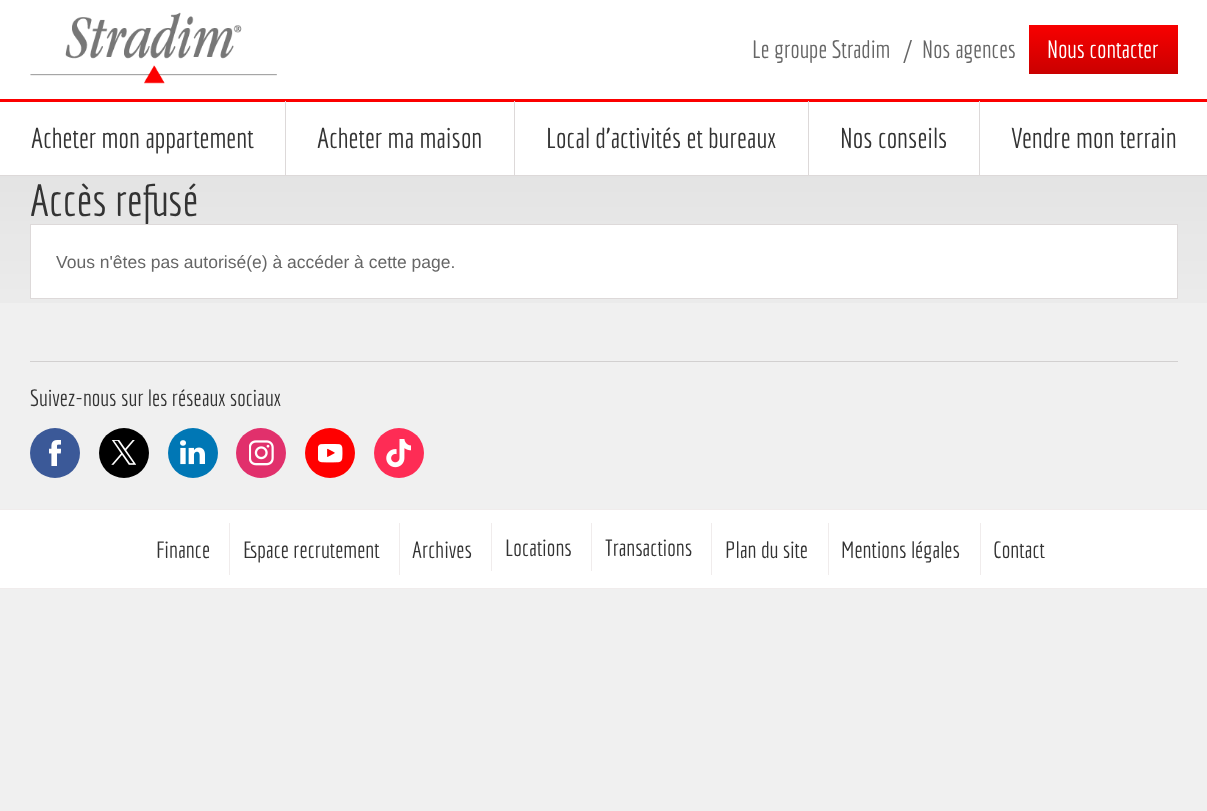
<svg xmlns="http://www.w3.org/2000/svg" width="1207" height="811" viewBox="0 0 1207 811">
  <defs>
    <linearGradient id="g1" gradientUnits="userSpaceOnUse" x1="1103" y1="25" x2="1103" y2="74"><stop offset="0" stop-color="rgb(248,0,0)"/><stop offset="1" stop-color="rgb(202,0,0)"/></linearGradient>
  </defs>
  <rect width="100%" height="100%" fill="rgb(240,240,240)"/>
  <image x="0" y="176" width="1207" height="127" href="pic1.png"/>
  <rect x="0" y="0" width="1207" height="175" fill="rgb(255,255,255)"/>
  <image x="30" y="12" width="247" height="72" href="pic2.png"/>
  <g font-family="Economica" font-size="24.5" fill="rgb(102,102,102)">
    <text x="752" y="58">Le groupe Stradim</text>
    <text x="903" y="58">/</text>
    <text x="922" y="58">Nos agences</text>
  </g>
  <rect x="1029" y="25" width="149" height="49" fill="url(#g1)"/>
  <text x="1047" y="58" font-family="Economica" font-size="24.5" fill="rgb(255,255,255)">Nous contacter</text>
  <rect x="0" y="99" width="1207" height="3" fill="rgb(252,0,0)"/>
  <rect x="0" y="175" width="1207" height="1" fill="rgb(221,217,217)"/>
  <rect x="285" y="101" width="1" height="74" fill="rgb(221,217,217)"/>
  <text x="31" y="148" font-family="Economica" font-size="28" fill="rgb(51,51,51)">Acheter mon appartement</text>
  <rect x="514" y="101" width="1" height="74" fill="rgb(221,217,217)"/>
  <text x="317" y="148" font-family="Economica" font-size="28" fill="rgb(51,51,51)">Acheter ma maison</text>
  <rect x="808" y="101" width="1" height="74" fill="rgb(221,217,217)"/>
  <text x="546" y="148" font-family="Economica" font-size="28" fill="rgb(51,51,51)">Local d'activités et bureaux</text>
  <rect x="979" y="101" width="1" height="74" fill="rgb(221,217,217)"/>
  <g font-family="Economica" font-size="28" fill="rgb(51,51,51)">
    <text x="840" y="148">Nos conseils</text>
    <text x="1011" y="148">Vendre mon terrain</text>
  </g>
  <text x="30" y="216" font-family="Economica" font-size="44" fill="rgb(51,51,51)">Accès refusé</text>
  <rect x="30.5" y="224.5" width="1147" height="74" fill="rgb(255,255,255)" stroke="rgb(221,217,217)"/>
  <text x="56" y="268" font-family="Liberation Sans" font-size="17.5" fill="rgb(102,102,102)">Vous n'êtes pas autorisé(e) à accéder à cette page.</text>
  <rect x="30" y="361" width="1148" height="1" fill="rgb(210,208,208)"/>
  <text x="30" y="406" font-family="Economica" font-size="22.75" fill="rgb(51,51,51)">Suivez-nous sur les réseaux sociaux</text>
  <circle cx="55" cy="453" r="25" fill="rgb(59,89,152)"/>
  <image x="49" y="440" width="12" height="26" href="pic3.png"/>
  <circle cx="124" cy="453" r="25" fill="rgb(0,0,0)"/>
  <image x="111" y="440" width="25" height="25" href="pic4.png"/>
  <circle cx="193" cy="453" r="25" fill="rgb(0,119,181)"/>
  <image x="180" y="440" width="25" height="25" href="pic5.png"/>
  <circle cx="261" cy="453" r="25" fill="rgb(225,48,108)"/>
  <image x="249" y="440" width="25" height="26" href="pic6.png"/>
  <circle cx="330" cy="453" r="25" fill="rgb(255,0,0)"/>
  <image x="318" y="444" width="25" height="19" href="pic7.png"/>
  <circle cx="399" cy="453" r="25" fill="rgb(254,44,85)"/>
  <image x="386" y="439" width="25" height="29" href="pic8.png"/>
  <rect x="0" y="510" width="1207" height="78" fill="rgb(255,255,255)"/>
  <rect x="0" y="509" width="1207" height="1" fill="rgb(240,236,236)"/>
  <rect x="0" y="588" width="1207" height="1" fill="rgb(240,236,236)"/>
  <text x="156" y="558" font-family="Economica" font-size="23" fill="rgb(51,51,51)">Finance</text>
  <rect x="229" y="523" width="1" height="52" fill="rgb(240,236,236)"/>
  <text x="243" y="558" font-family="Economica" font-size="23" fill="rgb(51,51,51)">Espace recrutement</text>
  <rect x="399" y="523" width="1" height="52" fill="rgb(240,236,236)"/>
  <text x="412" y="558" font-family="Economica" font-size="23" fill="rgb(51,51,51)">Archives</text>
  <rect x="491" y="523" width="1" height="48" fill="rgb(240,236,236)"/>
  <text x="505" y="556" font-family="Economica" font-size="23" fill="rgb(51,51,51)">Locations</text>
  <rect x="591" y="523" width="1" height="48" fill="rgb(240,236,236)"/>
  <text x="605" y="556" font-family="Economica" font-size="23" fill="rgb(51,51,51)">Transactions</text>
  <rect x="711" y="523" width="1" height="52" fill="rgb(240,236,236)"/>
  <text x="725" y="558" font-family="Economica" font-size="23" fill="rgb(51,51,51)">Plan du site</text>
  <rect x="828" y="523" width="1" height="52" fill="rgb(240,236,236)"/>
  <text x="841" y="558" font-family="Economica" font-size="23" fill="rgb(51,51,51)">Mentions légales</text>
  <rect x="980" y="523" width="1" height="52" fill="rgb(240,236,236)"/>
  <text x="993" y="558" font-family="Economica" font-size="23" fill="rgb(51,51,51)">Contact</text>
</svg>
